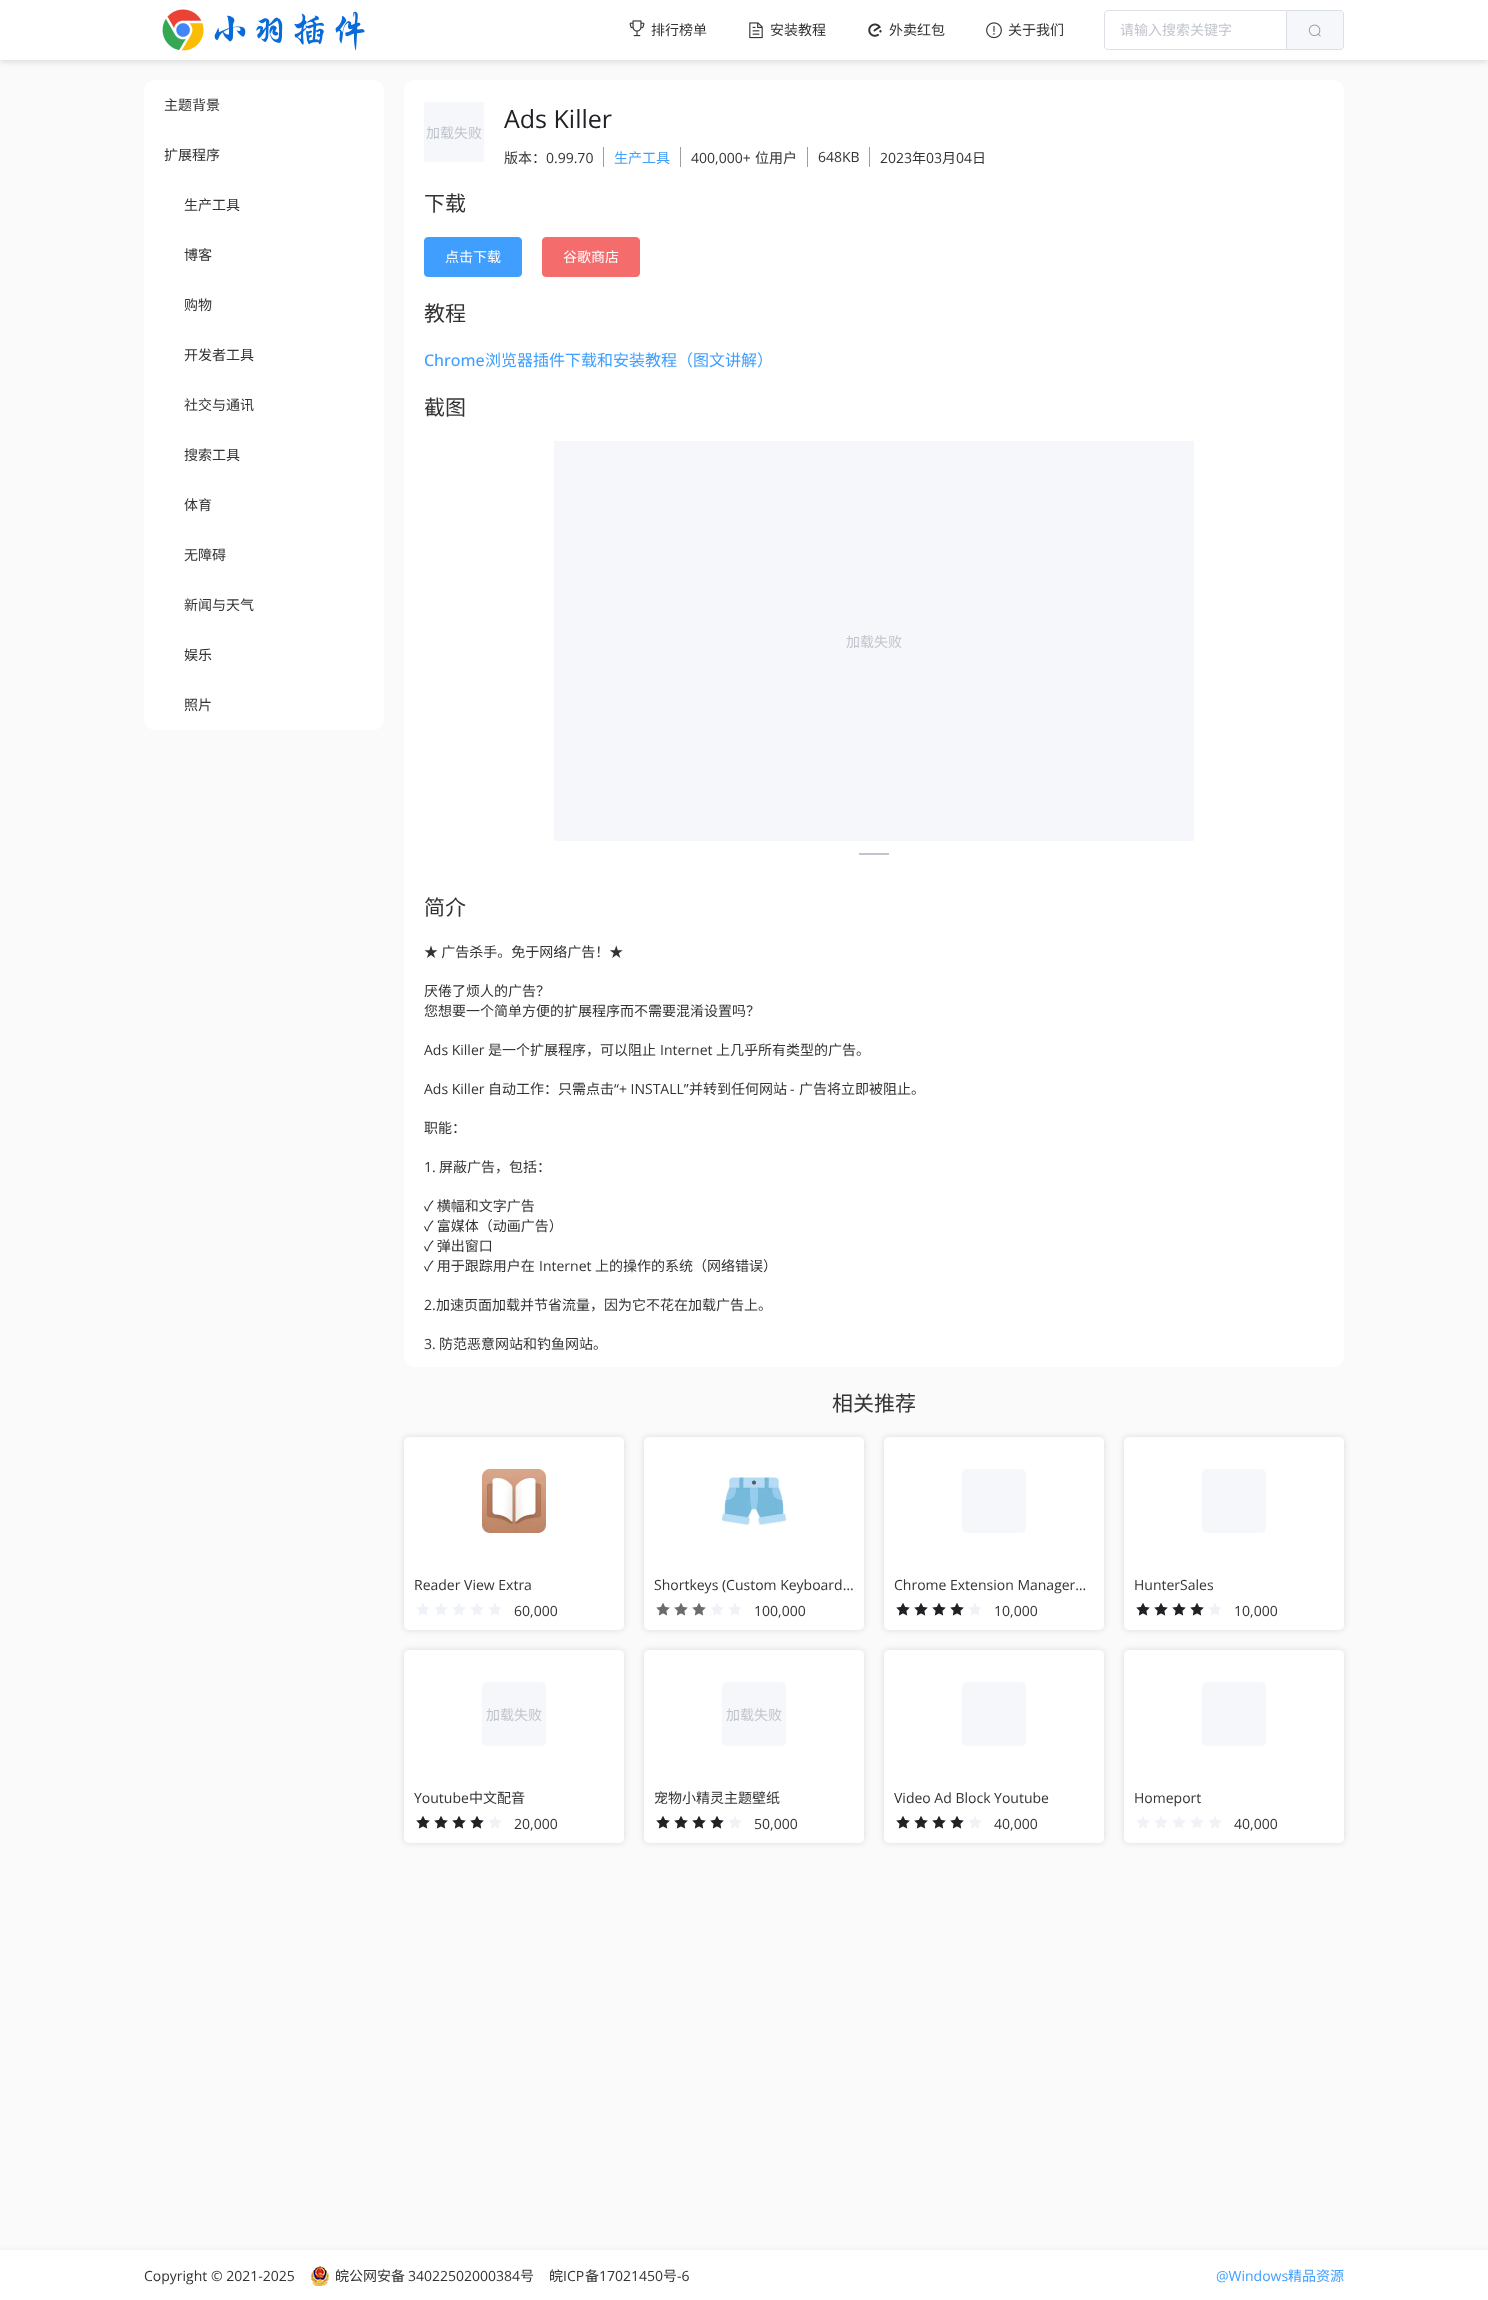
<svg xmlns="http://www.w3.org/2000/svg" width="1488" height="2300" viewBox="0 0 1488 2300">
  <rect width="100%" height="100%" fill="rgb(250,250,250)"/>
  <rect x="0" y="2" width="1488" height="60" fill="rgba(0,0,0,0.12)" filter="blur(3px)"/>
  <rect x="0" y="0" width="1488" height="60" fill="rgb(255,255,255)"/>
  <image x="162" y="9" width="203" height="42" href="pic1.png"/>
  <image x="629" y="20" width="16" height="17" href="pic2.png"/>
  <text x="651" y="35" font-family="Noto Sans CJK SC" font-size="14" fill="rgb(51,51,51)">排行榜单</text>
  <image x="749" y="22" width="14" height="17" href="pic3.png"/>
  <text x="770" y="35" font-family="Noto Sans CJK SC" font-size="14" fill="rgb(51,51,51)">安装教程</text>
  <image x="868" y="23" width="14" height="14" href="pic4.png"/>
  <text x="889" y="35" font-family="Noto Sans CJK SC" font-size="14" fill="rgb(51,51,51)">外卖红包</text>
  <image x="986" y="22" width="16" height="17" href="pic5.png"/>
  <text x="1008" y="35" font-family="Noto Sans CJK SC" font-size="14" fill="rgb(51,51,51)">关于我们</text>
  <path d="M1108 10.5H1286.5V49.5H1108C1106 49.5 1104.5 48 1104.5 46V14C1104.5 12 1106 10.5 1108 10.5Z" fill="none" stroke="rgb(220,223,230)"/>
  <text x="1120" y="35" font-family="Noto Sans CJK SC" font-size="14" fill="rgb(192,196,204)">请输入搜索关键字</text>
  <path d="M1287 10H1340C1342 10 1344 12 1344 14V46C1344 48 1342 50 1340 50H1287Z" fill="rgb(245,247,250)"/>
  <path d="M1287 10H1340C1342 10 1344 12 1344 14V46C1344 48 1342 50 1340 50H1287ZM1287 11H1340C1342 11 1343 12 1343 14V46C1343 48 1342 49 1340 49H1287Z" fill="rgb(220,223,230)" fill-rule="evenodd"/>
  <image x="1308" y="24" width="13" height="13" href="pic6.png"/>
  <rect x="144" y="80" width="240" height="650" rx="10" fill="rgb(255,255,255)"/>
  <g font-family="Noto Sans CJK SC" font-size="14" fill="rgb(51,51,51)">
    <text x="164" y="110">主题背景</text>
    <text x="164" y="160">扩展程序</text>
    <text x="184" y="210">生产工具</text>
    <text x="184" y="260">博客</text>
    <text x="184" y="310">购物</text>
    <text x="184" y="360">开发者工具</text>
    <text x="184" y="410">社交与通讯</text>
    <text x="184" y="460">搜索工具</text>
    <text x="184" y="510">体育</text>
    <text x="184" y="560">无障碍</text>
    <text x="184" y="610">新闻与天气</text>
    <text x="184" y="660">娱乐</text>
    <text x="184" y="710">照片</text>
  </g>
  <rect x="404" y="80" width="940" height="1287" rx="10" fill="rgb(255,255,255)"/>
  <rect x="424" y="102" width="60" height="60" fill="rgb(245,247,250)"/>
  <text x="426" y="138" font-family="Noto Sans CJK SC" font-size="14" fill="rgb(192,196,204)">加载失败</text>
  <text x="504" y="128" font-family="Open Sans" font-size="25" fill="rgb(32,33,36)">Ads Killer</text>
  <text x="504" y="163" font-family="Noto Sans CJK SC" font-size="14" fill="rgb(51,51,51)">版本：</text>
  <text x="546" y="163" font-family="Open Sans" font-size="14" fill="rgb(51,51,51)">0.99.70</text>
  <rect x="603" y="147" width="1" height="20" fill="rgb(154,160,166)"/>
  <text x="614" y="163" font-family="Noto Sans CJK SC" font-size="14" fill="rgb(64,158,255)">生产工具</text>
  <rect x="680" y="147" width="1" height="20" fill="rgb(154,160,166)"/>
  <text x="691" y="163" font-family="Open Sans" font-size="14" fill="rgb(51,51,51)">400,000+</text>
  <text x="755" y="163" font-family="Noto Sans CJK SC" font-size="14" fill="rgb(51,51,51)">位用户</text>
  <rect x="807" y="147" width="1" height="20" fill="rgb(154,160,166)"/>
  <text x="818" y="162" font-family="Open Sans" font-size="14" fill="rgb(51,51,51)">648KB</text>
  <rect x="869" y="147" width="1" height="20" fill="rgb(154,160,166)"/>
  <text x="880" y="163" font-family="Open Sans" font-size="14" fill="rgb(51,51,51)">2023</text>
  <text x="912" y="163" font-family="Noto Sans CJK SC" font-size="14" fill="rgb(51,51,51)">年</text>
  <text x="926" y="163" font-family="Open Sans" font-size="14" fill="rgb(51,51,51)">03</text>
  <text x="942" y="163" font-family="Noto Sans CJK SC" font-size="14" fill="rgb(51,51,51)">月</text>
  <text x="956" y="163" font-family="Open Sans" font-size="14" fill="rgb(51,51,51)">04</text>
  <text x="972" y="163" font-family="Noto Sans CJK SC" font-size="14" fill="rgb(51,51,51)">日</text>
  <text x="424" y="211" font-family="Noto Sans CJK SC" font-size="21" fill="rgb(51,51,51)">下载</text>
  <rect x="424.5" y="237.5" width="97" height="39" rx="3.5" fill="rgb(64,158,255)" stroke="rgb(64,158,255)"/>
  <text x="445" y="262" font-family="Noto Sans CJK SC" font-size="14" fill="rgb(255,255,255)">点击下载</text>
  <rect x="542.5" y="237.5" width="97" height="39" rx="3.5" fill="rgb(245,108,108)" stroke="rgb(245,108,108)"/>
  <text x="563" y="262" font-family="Noto Sans CJK SC" font-size="14" fill="rgb(255,255,255)">谷歌商店</text>
  <text x="424" y="321" font-family="Noto Sans CJK SC" font-size="21" fill="rgb(51,51,51)">教程</text>
  <text x="424" y="366" font-family="Open Sans" font-size="16" font-weight="500" fill="rgb(64,158,255)">Chrome</text>
  <text x="485" y="366" font-family="Noto Sans CJK SC" font-size="16" fill="rgb(64,158,255)">浏览器插件下载和安装教程（图文讲解）</text>
  <text x="424" y="415" font-family="Noto Sans CJK SC" font-size="21" fill="rgb(51,51,51)">截图</text>
  <rect x="554" y="441" width="640" height="400" fill="rgb(245,247,250)"/>
  <text x="846" y="647" font-family="Noto Sans CJK SC" font-size="14" fill="rgb(192,196,204)">加载失败</text>
  <rect x="859" y="853" width="30" height="2" fill="rgb(192,196,204)"/>
  <text x="424" y="915" font-family="Noto Sans CJK SC" font-size="21" fill="rgb(51,51,51)">简介</text>
  <g font-family="Noto Sans CJK SC" font-size="14" fill="rgb(51,51,51)">
    <text x="424" y="957">★ 广告杀手。免于网络广告！★</text>
    <text>
      <tspan x="424" y="996">厌倦了烦人的广告？</tspan>
      <tspan x="424" y="1016">您想要一个简单方便的扩展程序而不需要混淆设置吗？</tspan>
    </text>
  </g>
  <text x="424" y="1055" font-family="Open Sans" font-size="14" fill="rgb(51,51,51)">Ads Killer</text>
  <text x="488" y="1055" font-family="Noto Sans CJK SC" font-size="14" fill="rgb(51,51,51)">是一个扩展程序，可以阻止</text>
  <text x="660" y="1055" font-family="Open Sans" font-size="14" fill="rgb(51,51,51)">Internet</text>
  <text x="716" y="1055" font-family="Noto Sans CJK SC" font-size="14" fill="rgb(51,51,51)">上几乎所有类型的广告。</text>
  <text x="424" y="1094" font-family="Open Sans" font-size="14" fill="rgb(51,51,51)">Ads Killer</text>
  <text x="488" y="1094" font-family="Noto Sans CJK SC" font-size="14" fill="rgb(51,51,51)">自动工作：只需点击</text>
  <text x="614" y="1094" font-family="Open Sans" font-size="14" fill="rgb(51,51,51)">“+ INSTALL”</text>
  <text x="689" y="1094" font-family="Noto Sans CJK SC" font-size="14" fill="rgb(51,51,51)">并转到任何网站</text>
  <text x="790" y="1094" font-family="Open Sans" font-size="14" fill="rgb(51,51,51)">-</text>
  <g font-family="Noto Sans CJK SC" font-size="14" fill="rgb(51,51,51)">
    <text x="799" y="1094">广告将立即被阻止。</text>
    <text x="424" y="1133">职能：</text>
  </g>
  <text x="424" y="1172" font-family="Open Sans" font-size="14" fill="rgb(51,51,51)">1.</text>
  <g font-family="Noto Sans CJK SC" font-size="14" fill="rgb(51,51,51)">
    <text x="439" y="1172">屏蔽广告，包括：</text>
    <text>
      <tspan x="424" y="1211">✓ 横幅和文字广告</tspan>
      <tspan x="424" y="1231">✓ 富媒体（动画广告）</tspan>
      <tspan x="424" y="1251">✓ 弹出窗口</tspan>
      <tspan x="424" y="1271">✓ 用于跟踪用户在</tspan>
    </text>
  </g>
  <text x="539" y="1271" font-family="Open Sans" font-size="14" fill="rgb(51,51,51)">Internet</text>
  <text x="595" y="1271" font-family="Noto Sans CJK SC" font-size="14" fill="rgb(51,51,51)">上的操作的系统（网络错误）</text>
  <text x="424" y="1310" font-family="Open Sans" font-size="14" fill="rgb(51,51,51)">2.</text>
  <text x="436" y="1310" font-family="Noto Sans CJK SC" font-size="14" fill="rgb(51,51,51)">加速页面加载并节省流量，因为它不花在加载广告上。</text>
  <text x="424" y="1349" font-family="Open Sans" font-size="14" fill="rgb(51,51,51)">3.</text>
  <text x="439" y="1349" font-family="Noto Sans CJK SC" font-size="14" fill="rgb(51,51,51)">防范恶意网站和钓鱼网站。</text>
  <text x="832" y="1411" font-family="Noto Sans CJK SC" font-size="21" fill="rgb(51,51,51)">相关推荐</text>
  <rect x="404" y="1437" width="220" height="193" rx="5" fill="rgba(0,0,0,0.12)" filter="blur(3px)"/>
  <rect x="404" y="1437" width="220" height="193" rx="5" fill="rgb(255,255,255)"/>
  <image x="482" y="1469" width="64" height="64" href="pic7.png"/>
  <text x="414" y="1590" font-family="Open Sans" font-size="14" fill="rgb(51,51,51)">Reader View Extra</text>
  <image x="416" y="1603" width="14" height="12" href="pic8.png"/>
  <image x="434" y="1603" width="14" height="12" href="pic8.png"/>
  <image x="452" y="1603" width="14" height="12" href="pic8.png"/>
  <image x="470" y="1603" width="14" height="12" href="pic8.png"/>
  <image x="488" y="1603" width="14" height="12" href="pic8.png"/>
  <text x="514" y="1616" font-family="Open Sans" font-size="14" fill="rgb(51,51,51)">60,000</text>
  <rect x="644" y="1437" width="220" height="193" rx="5" fill="rgba(0,0,0,0.12)" filter="blur(3px)"/>
  <rect x="644" y="1437" width="220" height="193" rx="5" fill="rgb(255,255,255)"/>
  <image x="722" y="1477" width="64" height="48" href="pic9.png"/>
  <text x="654" y="1590" font-family="Open Sans" font-size="14" fill="rgb(51,51,51)">Shortkeys (Custom Keyboard…</text>
  <image x="656" y="1603" width="14" height="13" href="pic10.png"/>
  <image x="674" y="1603" width="14" height="13" href="pic10.png"/>
  <image x="692" y="1603" width="14" height="13" href="pic10.png"/>
  <image x="710" y="1603" width="14" height="12" href="pic8.png"/>
  <image x="728" y="1603" width="14" height="12" href="pic8.png"/>
  <text x="754" y="1616" font-family="Open Sans" font-size="14" fill="rgb(51,51,51)">100,000</text>
  <rect x="884" y="1437" width="220" height="193" rx="5" fill="rgba(0,0,0,0.12)" filter="blur(3px)"/>
  <rect x="884" y="1437" width="220" height="193" rx="5" fill="rgb(255,255,255)"/>
  <rect x="962" y="1469" width="64" height="64" rx="5" fill="rgb(245,247,250)"/>
  <text x="894" y="1590" font-family="Open Sans" font-size="14" fill="rgb(51,51,51)">Chrome Extension Manager…</text>
  <image x="896" y="1602" width="14" height="14" href="pic11.png"/>
  <image x="914" y="1602" width="14" height="14" href="pic11.png"/>
  <image x="932" y="1602" width="14" height="14" href="pic11.png"/>
  <image x="950" y="1602" width="14" height="14" href="pic11.png"/>
  <image x="968" y="1603" width="14" height="12" href="pic8.png"/>
  <text x="994" y="1616" font-family="Open Sans" font-size="14" fill="rgb(51,51,51)">10,000</text>
  <rect x="1124" y="1437" width="220" height="193" rx="5" fill="rgba(0,0,0,0.12)" filter="blur(3px)"/>
  <rect x="1124" y="1437" width="220" height="193" rx="5" fill="rgb(255,255,255)"/>
  <rect x="1202" y="1469" width="64" height="64" rx="5" fill="rgb(245,247,250)"/>
  <text x="1134" y="1590" font-family="Open Sans" font-size="14" fill="rgb(51,51,51)">HunterSales</text>
  <image x="1136" y="1602" width="14" height="14" href="pic11.png"/>
  <image x="1154" y="1602" width="14" height="14" href="pic11.png"/>
  <image x="1172" y="1602" width="14" height="14" href="pic11.png"/>
  <image x="1190" y="1602" width="14" height="14" href="pic11.png"/>
  <image x="1208" y="1603" width="14" height="12" href="pic8.png"/>
  <text x="1234" y="1616" font-family="Open Sans" font-size="14" fill="rgb(51,51,51)">10,000</text>
  <rect x="404" y="1650" width="220" height="193" rx="5" fill="rgba(0,0,0,0.12)" filter="blur(3px)"/>
  <rect x="404" y="1650" width="220" height="193" rx="5" fill="rgb(255,255,255)"/>
  <rect x="482" y="1682" width="64" height="64" rx="5" fill="rgb(245,247,250)"/>
  <text x="486" y="1720" font-family="Noto Sans CJK SC" font-size="14" fill="rgb(192,196,204)">加载失败</text>
  <text x="414" y="1803" font-family="Open Sans" font-size="14" fill="rgb(51,51,51)">Youtube</text>
  <text x="469" y="1803" font-family="Noto Sans CJK SC" font-size="14" fill="rgb(51,51,51)">中文配音</text>
  <image x="416" y="1815" width="14" height="14" href="pic11.png"/>
  <image x="434" y="1815" width="14" height="14" href="pic11.png"/>
  <image x="452" y="1815" width="14" height="14" href="pic11.png"/>
  <image x="470" y="1815" width="14" height="14" href="pic11.png"/>
  <image x="488" y="1816" width="14" height="12" href="pic8.png"/>
  <text x="514" y="1829" font-family="Open Sans" font-size="14" fill="rgb(51,51,51)">20,000</text>
  <rect x="644" y="1650" width="220" height="193" rx="5" fill="rgba(0,0,0,0.12)" filter="blur(3px)"/>
  <rect x="644" y="1650" width="220" height="193" rx="5" fill="rgb(255,255,255)"/>
  <rect x="722" y="1682" width="64" height="64" rx="5" fill="rgb(245,247,250)"/>
  <text x="726" y="1720" font-family="Noto Sans CJK SC" font-size="14" fill="rgb(192,196,204)">加载失败</text>
  <text x="654" y="1803" font-family="Noto Sans CJK SC" font-size="14" fill="rgb(51,51,51)">宠物小精灵主题壁纸</text>
  <image x="656" y="1815" width="14" height="14" href="pic11.png"/>
  <image x="674" y="1815" width="14" height="14" href="pic11.png"/>
  <image x="692" y="1815" width="14" height="14" href="pic11.png"/>
  <image x="710" y="1815" width="14" height="14" href="pic11.png"/>
  <image x="728" y="1816" width="14" height="12" href="pic8.png"/>
  <text x="754" y="1829" font-family="Open Sans" font-size="14" fill="rgb(51,51,51)">50,000</text>
  <rect x="884" y="1650" width="220" height="193" rx="5" fill="rgba(0,0,0,0.12)" filter="blur(3px)"/>
  <rect x="884" y="1650" width="220" height="193" rx="5" fill="rgb(255,255,255)"/>
  <rect x="962" y="1682" width="64" height="64" rx="5" fill="rgb(245,247,250)"/>
  <text x="894" y="1803" font-family="Open Sans" font-size="14" fill="rgb(51,51,51)">Video Ad Block Youtube</text>
  <image x="896" y="1815" width="14" height="14" href="pic11.png"/>
  <image x="914" y="1815" width="14" height="14" href="pic11.png"/>
  <image x="932" y="1815" width="14" height="14" href="pic11.png"/>
  <image x="950" y="1815" width="14" height="14" href="pic11.png"/>
  <image x="968" y="1816" width="14" height="12" href="pic8.png"/>
  <text x="994" y="1829" font-family="Open Sans" font-size="14" fill="rgb(51,51,51)">40,000</text>
  <rect x="1124" y="1650" width="220" height="193" rx="5" fill="rgba(0,0,0,0.12)" filter="blur(3px)"/>
  <rect x="1124" y="1650" width="220" height="193" rx="5" fill="rgb(255,255,255)"/>
  <rect x="1202" y="1682" width="64" height="64" rx="5" fill="rgb(245,247,250)"/>
  <text x="1134" y="1803" font-family="Open Sans" font-size="14" fill="rgb(51,51,51)">Homeport</text>
  <image x="1136" y="1816" width="14" height="12" href="pic8.png"/>
  <image x="1154" y="1816" width="14" height="12" href="pic8.png"/>
  <image x="1172" y="1816" width="14" height="12" href="pic8.png"/>
  <image x="1190" y="1816" width="14" height="12" href="pic8.png"/>
  <image x="1208" y="1816" width="14" height="12" href="pic8.png"/>
  <text x="1234" y="1829" font-family="Open Sans" font-size="14" fill="rgb(51,51,51)">40,000</text>
  <rect x="0" y="2252" width="1488" height="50" fill="rgba(0,0,0,0.12)" filter="blur(3px)"/>
  <rect x="0" y="2250" width="1488" height="50" fill="rgb(255,255,255)"/>
  <text x="144" y="2281" font-family="Open Sans" font-size="14" fill="rgb(51,51,51)">Copyright © 2021-2025</text>
  <image x="311" y="2266" width="18" height="20" href="pic12.png"/>
  <text x="335" y="2281" font-family="Noto Sans CJK SC" font-size="14" fill="rgb(51,51,51)">皖公网安备</text>
  <text x="408" y="2281" font-family="Open Sans" font-size="14" fill="rgb(51,51,51)">34022502000384</text>
  <g font-family="Noto Sans CJK SC" font-size="14" fill="rgb(51,51,51)">
    <text x="520" y="2281">号</text>
    <text x="549" y="2281">皖</text>
  </g>
  <text x="563" y="2281" font-family="Open Sans" font-size="14" fill="rgb(51,51,51)">ICP</text>
  <text x="585" y="2281" font-family="Noto Sans CJK SC" font-size="14" fill="rgb(51,51,51)">备</text>
  <text x="599" y="2281" font-family="Open Sans" font-size="14" fill="rgb(51,51,51)">17021450</text>
  <text x="663" y="2281" font-family="Noto Sans CJK SC" font-size="14" fill="rgb(51,51,51)">号</text>
  <text x="677" y="2281" font-family="Open Sans" font-size="14" fill="rgb(51,51,51)">-6</text>
  <text x="1216" y="2281" font-family="Open Sans" font-size="14" fill="rgb(64,158,255)">@Windows</text>
  <text x="1288" y="2281" font-family="Noto Sans CJK SC" font-size="14" fill="rgb(64,158,255)">精品资源</text>
</svg>
